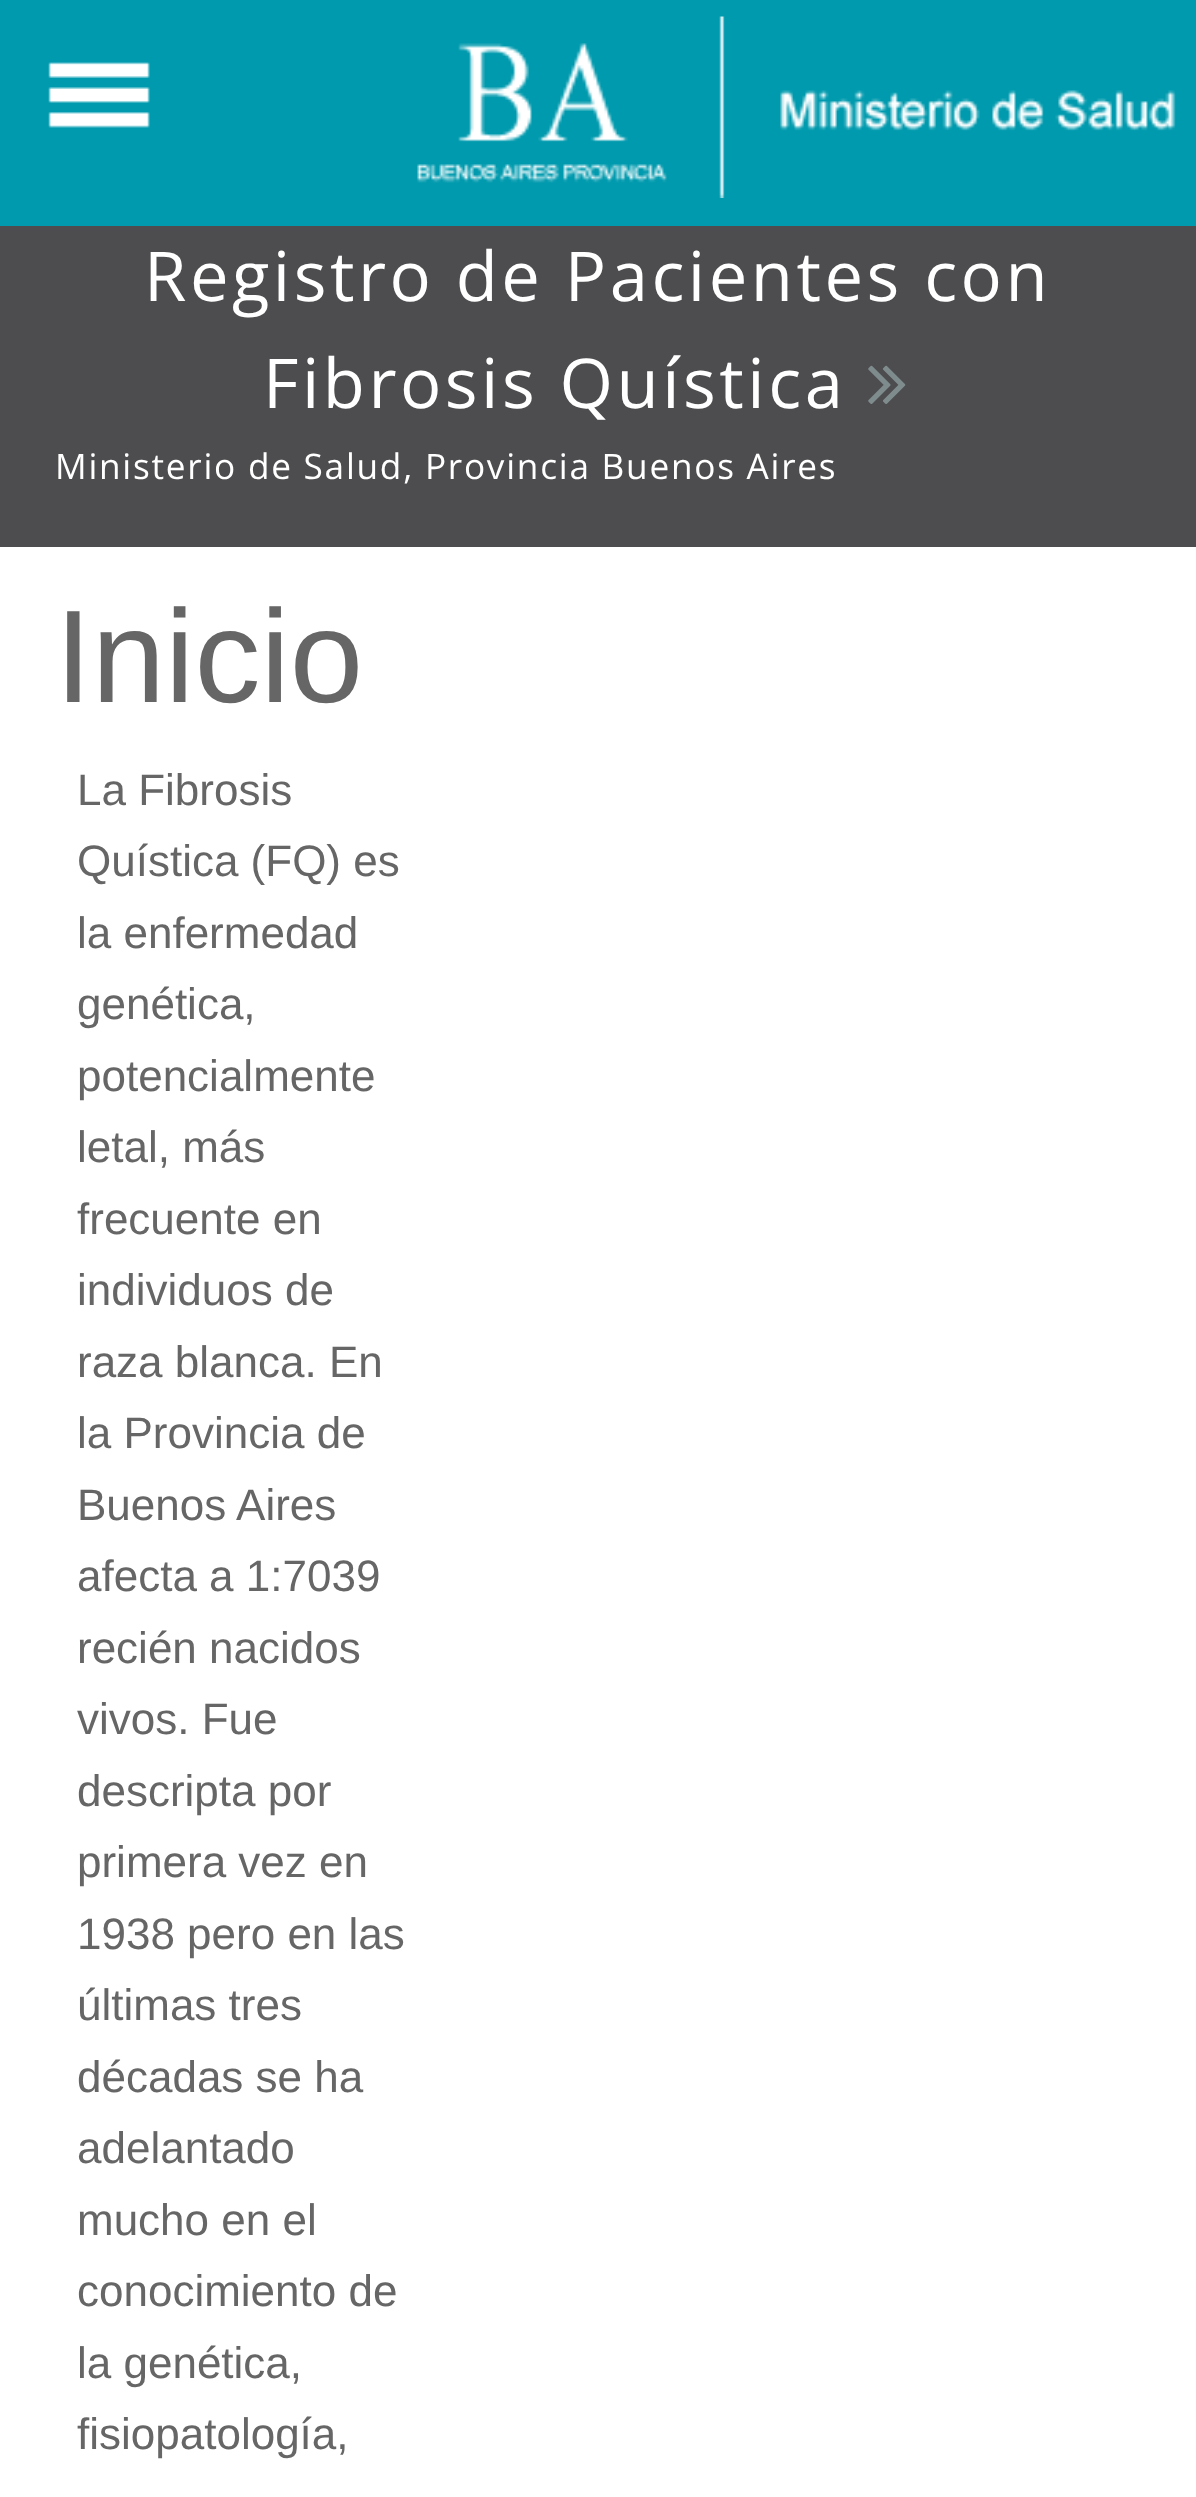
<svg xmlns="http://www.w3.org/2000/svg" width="1196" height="2497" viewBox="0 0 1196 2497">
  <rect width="100%" height="100%" fill="rgb(255,255,255)"/>
  <rect x="0" y="226" width="1196" height="321" fill="rgb(77,77,79)"/>
  <rect x="0" y="0" width="1196" height="226" fill="rgb(0,154,174)"/>
  <image x="48" y="62" width="102" height="66" href="pic1.png"/>
  <image x="417" y="16" width="759" height="182" href="pic2.png"/>
  <g font-family="Open Sans" font-size="68.75" letter-spacing="3.5" fill="rgb(255,255,255)">
    <text x="144" y="301">Registro de Pacientes con</text>
    <text x="263" y="408">Fibrosis Quística</text>
  </g>
  <image x="868" y="365" width="38" height="39" href="pic3.png"/>
  <text x="55" y="479" font-family="Open Sans" font-size="35.2" letter-spacing="1.75" fill="rgb(255,255,255)">Ministerio de Salud, Provincia Buenos Aires</text>
  <text x="55" y="702" font-family="Liberation Sans" font-size="132" fill="rgb(102,102,102)">Inicio</text>
  <g font-family="Liberation Sans" font-size="44" fill="rgb(102,102,102)">
    <text>
      <tspan x="77" y="805">La Fibrosis</tspan>
      <tspan x="77" y="876">Quística (FQ) es</tspan>
      <tspan x="77" y="948">la enfermedad</tspan>
      <tspan x="77" y="1019">genética,</tspan>
      <tspan x="77" y="1091">potencialmente</tspan>
      <tspan x="77" y="1162">letal, más</tspan>
      <tspan x="77" y="1234">frecuente en</tspan>
      <tspan x="77" y="1305">individuos de</tspan>
      <tspan x="77" y="1377">raza blanca. En</tspan>
      <tspan x="77" y="1448">la Provincia de</tspan>
      <tspan x="77" y="1520">Buenos Aires</tspan>
      <tspan x="77" y="1591">afecta a 1:7039</tspan>
      <tspan x="77" y="1663">recién nacidos</tspan>
      <tspan x="77" y="1734">vivos. Fue</tspan>
      <tspan x="77" y="1806">descripta por</tspan>
      <tspan x="77" y="1877">primera vez en</tspan>
      <tspan x="77" y="1949">1938 pero en las</tspan>
      <tspan x="77" y="2020">últimas tres</tspan>
      <tspan x="77" y="2092">décadas se ha</tspan>
      <tspan x="77" y="2163">adelantado</tspan>
      <tspan x="77" y="2235">mucho en el</tspan>
      <tspan x="77" y="2306">conocimiento de</tspan>
      <tspan x="77" y="2378">la genética,</tspan>
      <tspan x="77" y="2449">fisiopatología,</tspan>
    </text>
  </g>
</svg>
